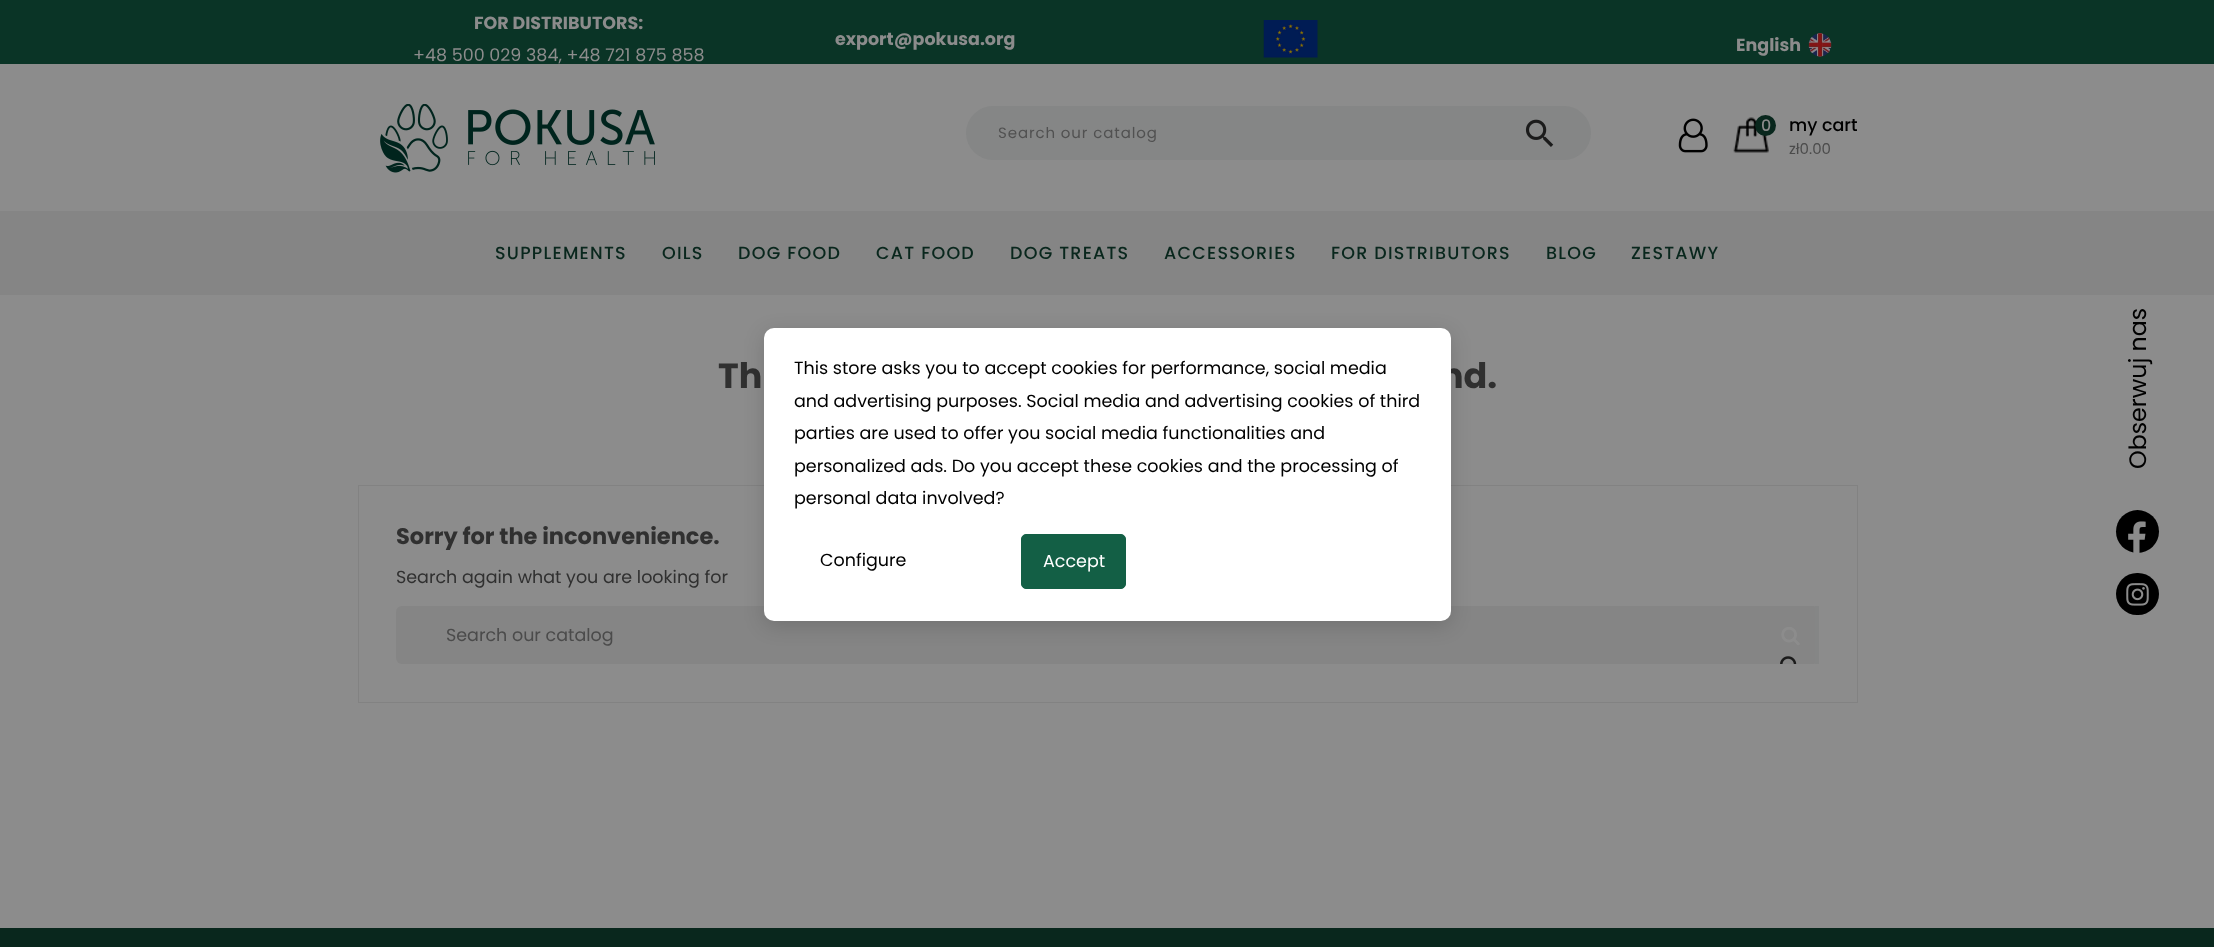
<svg xmlns="http://www.w3.org/2000/svg" width="2214" height="947" viewBox="0 0 2214 947">
  <rect width="100%" height="100%" fill="rgb(140,140,140)"/>
  <rect x="0" y="0" width="2214" height="64" fill="rgb(10,52,38)"/>
  <text x="474" y="29" font-family="Poppins" font-size="17.5" font-weight="bold" fill="rgb(140,140,140)">FOR DISTRIBUTORS:</text>
  <text x="413" y="61" font-family="Poppins" font-size="17.5" fill="rgb(140,140,140)">+48 500 029 384, +48 721 875 858</text>
  <text x="835" y="45" font-family="Poppins" font-size="17.5" font-weight="bold" fill="rgb(140,140,140)">export@pokusa.org</text>
  <image x="1263" y="20" width="55" height="38" href="pic1.png"/>
  <text x="1736" y="51" font-family="Poppins" font-size="17.5" font-weight="bold" fill="rgb(140,140,140)">English</text>
  <image x="1808" y="33" width="24" height="24" href="pic2.png"/>
  <image x="380" y="104" width="275" height="69" href="pic3.png"/>
  <rect x="966" y="106" width="625" height="54" rx="27" fill="rgb(133,134,134)"/>
  <text x="998" y="138" font-family="Poppins" font-size="15" letter-spacing="0.9" fill="rgb(81,81,81)">Search our catalog</text>
  <image x="1525" y="119" width="29" height="28" href="pic4.png"/>
  <image x="1678" y="118" width="30" height="35" href="pic5.png"/>
  <image x="1733" y="117" width="36" height="36" href="pic6.png"/>
  <circle cx="1765.5" cy="125.5" r="10.5" fill="rgb(9,39,29)"/>
  <text x="1761" y="131" font-family="Poppins" font-size="16" font-weight="500" fill="rgb(140,140,140)">0</text>
  <text x="1789" y="131" font-family="Poppins" font-size="17.5" font-weight="500" fill="rgb(0,0,0)">my cart</text>
  <text x="1789" y="154" font-family="Poppins" font-size="15" fill="rgb(75,75,75)">zł0.00</text>
  <rect x="0" y="211" width="2214" height="84" fill="rgb(133,133,133)"/>
  <g font-family="Poppins" font-size="17.5" font-weight="500" letter-spacing="1.25" fill="rgb(9,39,29)">
    <text x="495" y="259">SUPPLEMENTS</text>
    <text x="662" y="259">OILS</text>
    <text x="738" y="259">DOG FOOD</text>
    <text x="876" y="259">CAT FOOD</text>
    <text x="1010" y="259">DOG TREATS</text>
    <text x="1164" y="259">ACCESSORIES</text>
    <text x="1331" y="259">FOR DISTRIBUTORS</text>
    <text x="1546" y="259">BLOG</text>
    <text x="1631" y="259">ZESTAWY</text>
  </g>
  <text x="2146" y="469" transform="rotate(-90 2146 469)" font-family="Poppins" font-size="23.75" fill="rgb(0,0,0)">Obserwuj nas</text>
  <circle cx="2137.5" cy="531.5" r="21.5" fill="rgb(0,0,0)"/>
  <image x="2128" y="521" width="18" height="32" href="pic7.png"/>
  <rect x="2116" y="573" width="43" height="42" rx="21" fill="rgb(0,0,0)"/>
  <image x="2126" y="583" width="23" height="23" href="pic8.png"/>
  <g font-family="Poppins" font-size="35" font-weight="bold" fill="rgb(48,48,48)">
    <text x="718" y="388">Th</text>
    <text x="1440" y="388">nd.</text>
  </g>
  <rect x="358.5" y="485.5" width="1499" height="217" fill="none" stroke="rgb(130,130,130)"/>
  <text x="396" y="544" font-family="Poppins" font-size="22.5" font-weight="bold" fill="rgb(48,48,48)">Sorry for the inconvenience.</text>
  <text x="396" y="583" font-family="Poppins" font-size="17.5" fill="rgb(48,48,48)">Search again what you are looking for</text>
  <rect x="396" y="606" width="1423" height="58" rx="6" fill="rgb(133,133,133)"/>
  <text x="446" y="641" font-family="Poppins" font-size="17.5" fill="rgb(75,75,75)">Search our catalog</text>
  <rect x="1815" y="606" width="4" height="58" fill="rgb(133,134,134)"/>
  <image x="1781" y="627" width="19" height="19" href="pic9.png"/>
  <image x="1780" y="656" width="17" height="8" href="pic10.png"/>
  <rect x="0" y="928" width="2214" height="19" fill="rgb(9,39,29)"/>
  <rect x="764" y="333" width="687" height="293" rx="10" fill="rgba(0,0,0,0.15)" filter="blur(10px)"/>
  <rect x="764" y="328" width="687" height="293" rx="10" fill="rgb(255,255,255)"/>
  <g font-family="Poppins" font-size="17.5" fill="rgb(0,0,0)">
    <text>
      <tspan x="794" y="374">This store asks you to accept cookies for performance, social media</tspan>
      <tspan x="794" y="407">and advertising purposes. Social media and advertising cookies of third</tspan>
      <tspan x="794" y="439">parties are used to offer you social media functionalities and</tspan>
      <tspan x="794" y="472">personalized ads. Do you accept these cookies and the processing of</tspan>
      <tspan x="794" y="504">personal data involved?</tspan>
    </text>
    <text x="820" y="566">Configure</text>
  </g>
  <rect x="1021.5" y="534.5" width="104" height="54" rx="4.5" fill="rgb(19,95,69)" stroke="rgb(19,95,69)"/>
  <text x="1043" y="567" font-family="Poppins" font-size="17.5" fill="rgb(255,255,255)">Accept</text>
</svg>
